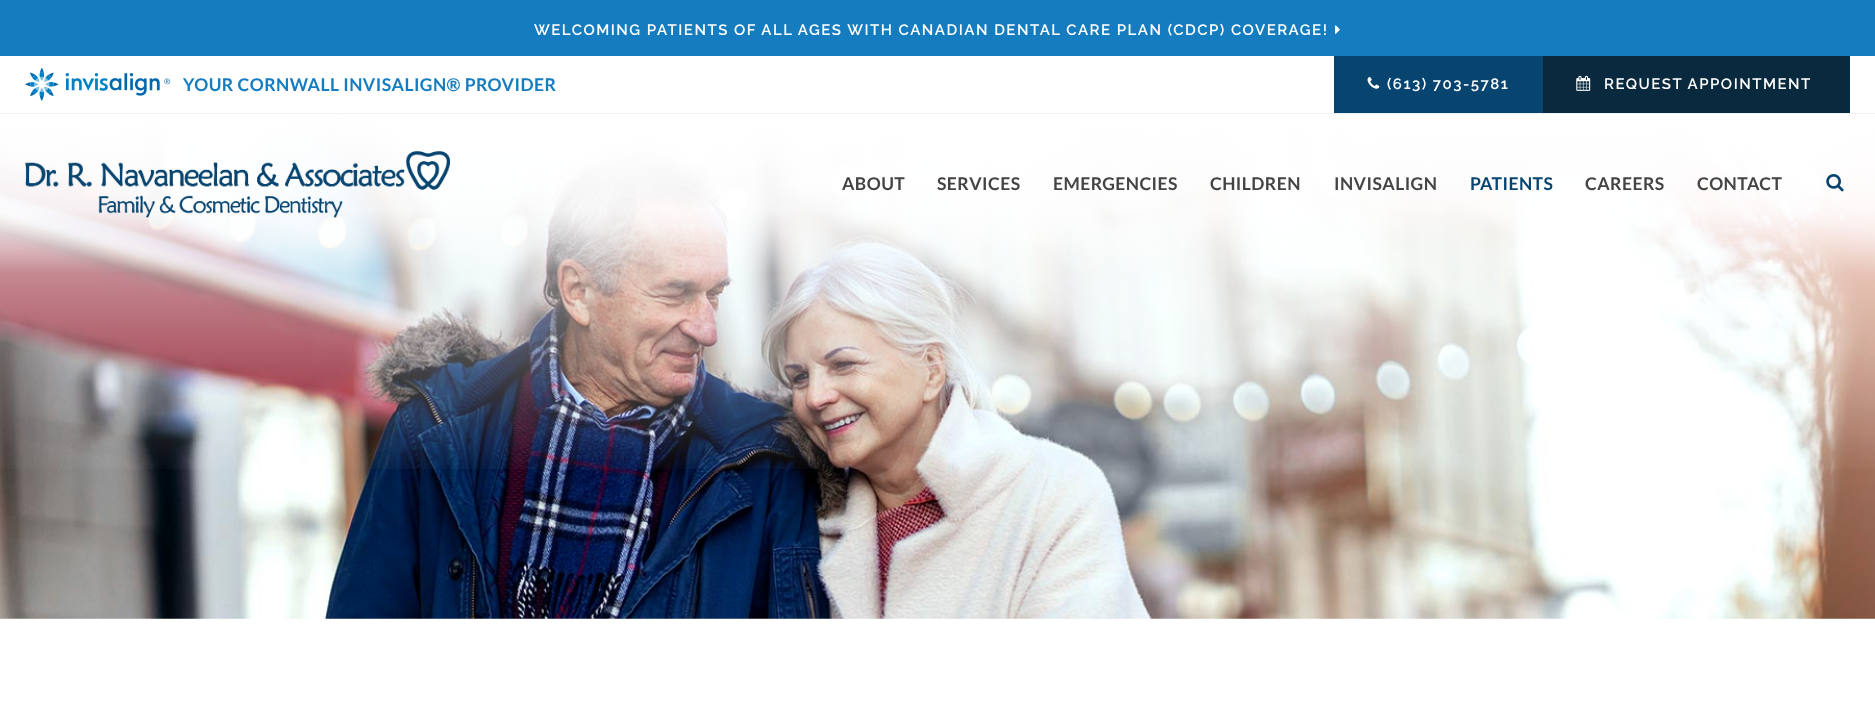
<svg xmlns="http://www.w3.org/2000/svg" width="1875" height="701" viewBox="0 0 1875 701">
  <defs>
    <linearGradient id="g1" gradientUnits="userSpaceOnUse" x1="938" y1="619" x2="938" y2="56"><stop offset="0.25" stop-color="rgb(255,255,255)" stop-opacity="0"/><stop offset="1" stop-color="rgb(255,255,255)"/></linearGradient>
    <linearGradient id="g2" gradientUnits="userSpaceOnUse" x1="938" y1="274" x2="938" y2="114"><stop offset="0" stop-color="rgb(255,255,255)" stop-opacity="0"/><stop offset="0.4" stop-color="rgb(255,255,255)" stop-opacity="0.8"/><stop offset="1" stop-color="rgb(255,255,255)"/></linearGradient>
  </defs>
  <rect width="100%" height="100%" fill="rgb(255,255,255)"/>
  <rect x="0" y="0" width="1875" height="56" fill="rgb(20,124,191)"/>
  <text x="534" y="35" font-family="Raleway" font-size="15" font-weight="100" letter-spacing="1.5" fill="rgb(255,255,255)">WELCOMING PATIENTS OF ALL AGES WITH CANADIAN DENTAL CARE PLAN (CDCP) COVERAGE!</text>
  <image x="1335" y="25" width="5" height="9" href="pic1.png"/>
  <rect x="0" y="113" width="1875" height="1" fill="rgb(241,241,241)"/>
  <image x="25" y="68" width="145" height="33" href="pic2.png"/>
  <text x="183" y="91" font-family="Lato" font-size="17.5" font-weight="bold" letter-spacing="0.45" fill="rgb(20,124,191)">YOUR CORNWALL INVISALIGN® PROVIDER</text>
  <rect x="1334" y="56" width="209" height="57" fill="rgb(7,68,111)"/>
  <image x="1367" y="77" width="13" height="12" href="pic3.png"/>
  <text x="1387" y="89" font-family="Raleway" font-size="15" font-weight="100" letter-spacing="1.5" fill="rgb(255,255,255)">(613) 703-5781</text>
  <rect x="1543" y="56" width="307" height="57" fill="rgb(9,41,63)"/>
  <image x="1576" y="75" width="15" height="16" href="pic4.png"/>
  <text x="1604" y="89" font-family="Raleway" font-size="15" font-weight="100" letter-spacing="1.5" fill="rgb(255,255,255)">REQUEST APPOINTMENT</text>
  <image x="0" y="117" width="1875" height="502" href="pic7.png"/>
  <rect x="0" y="117" width="1875" height="352" fill="url(#g1)"/>
  <rect x="0" y="117" width="1875" height="155" fill="url(#g2)"/>
  <image x="25" y="151" width="425" height="67" href="pic5.png"/>
  <g font-family="Lato" font-size="17.5" font-weight="bold" letter-spacing="0.45" fill="rgb(68,68,68)">
    <text x="842" y="190">ABOUT</text>
    <text x="937" y="190">SERVICES</text>
    <text x="1053" y="190">EMERGENCIES</text>
    <text x="1210" y="190">CHILDREN</text>
    <text x="1334" y="190">INVISALIGN</text>
  </g>
  <text x="1470" y="190" font-family="Lato" font-size="17.5" font-weight="bold" letter-spacing="0.45" fill="rgb(7,68,111)">PATIENTS</text>
  <g font-family="Lato" font-size="17.5" font-weight="bold" letter-spacing="0.45" fill="rgb(68,68,68)">
    <text x="1585" y="190">CAREERS</text>
    <text x="1697" y="190">CONTACT</text>
  </g>
  <image x="1826" y="174" width="18" height="18" href="pic6.png"/>
</svg>
